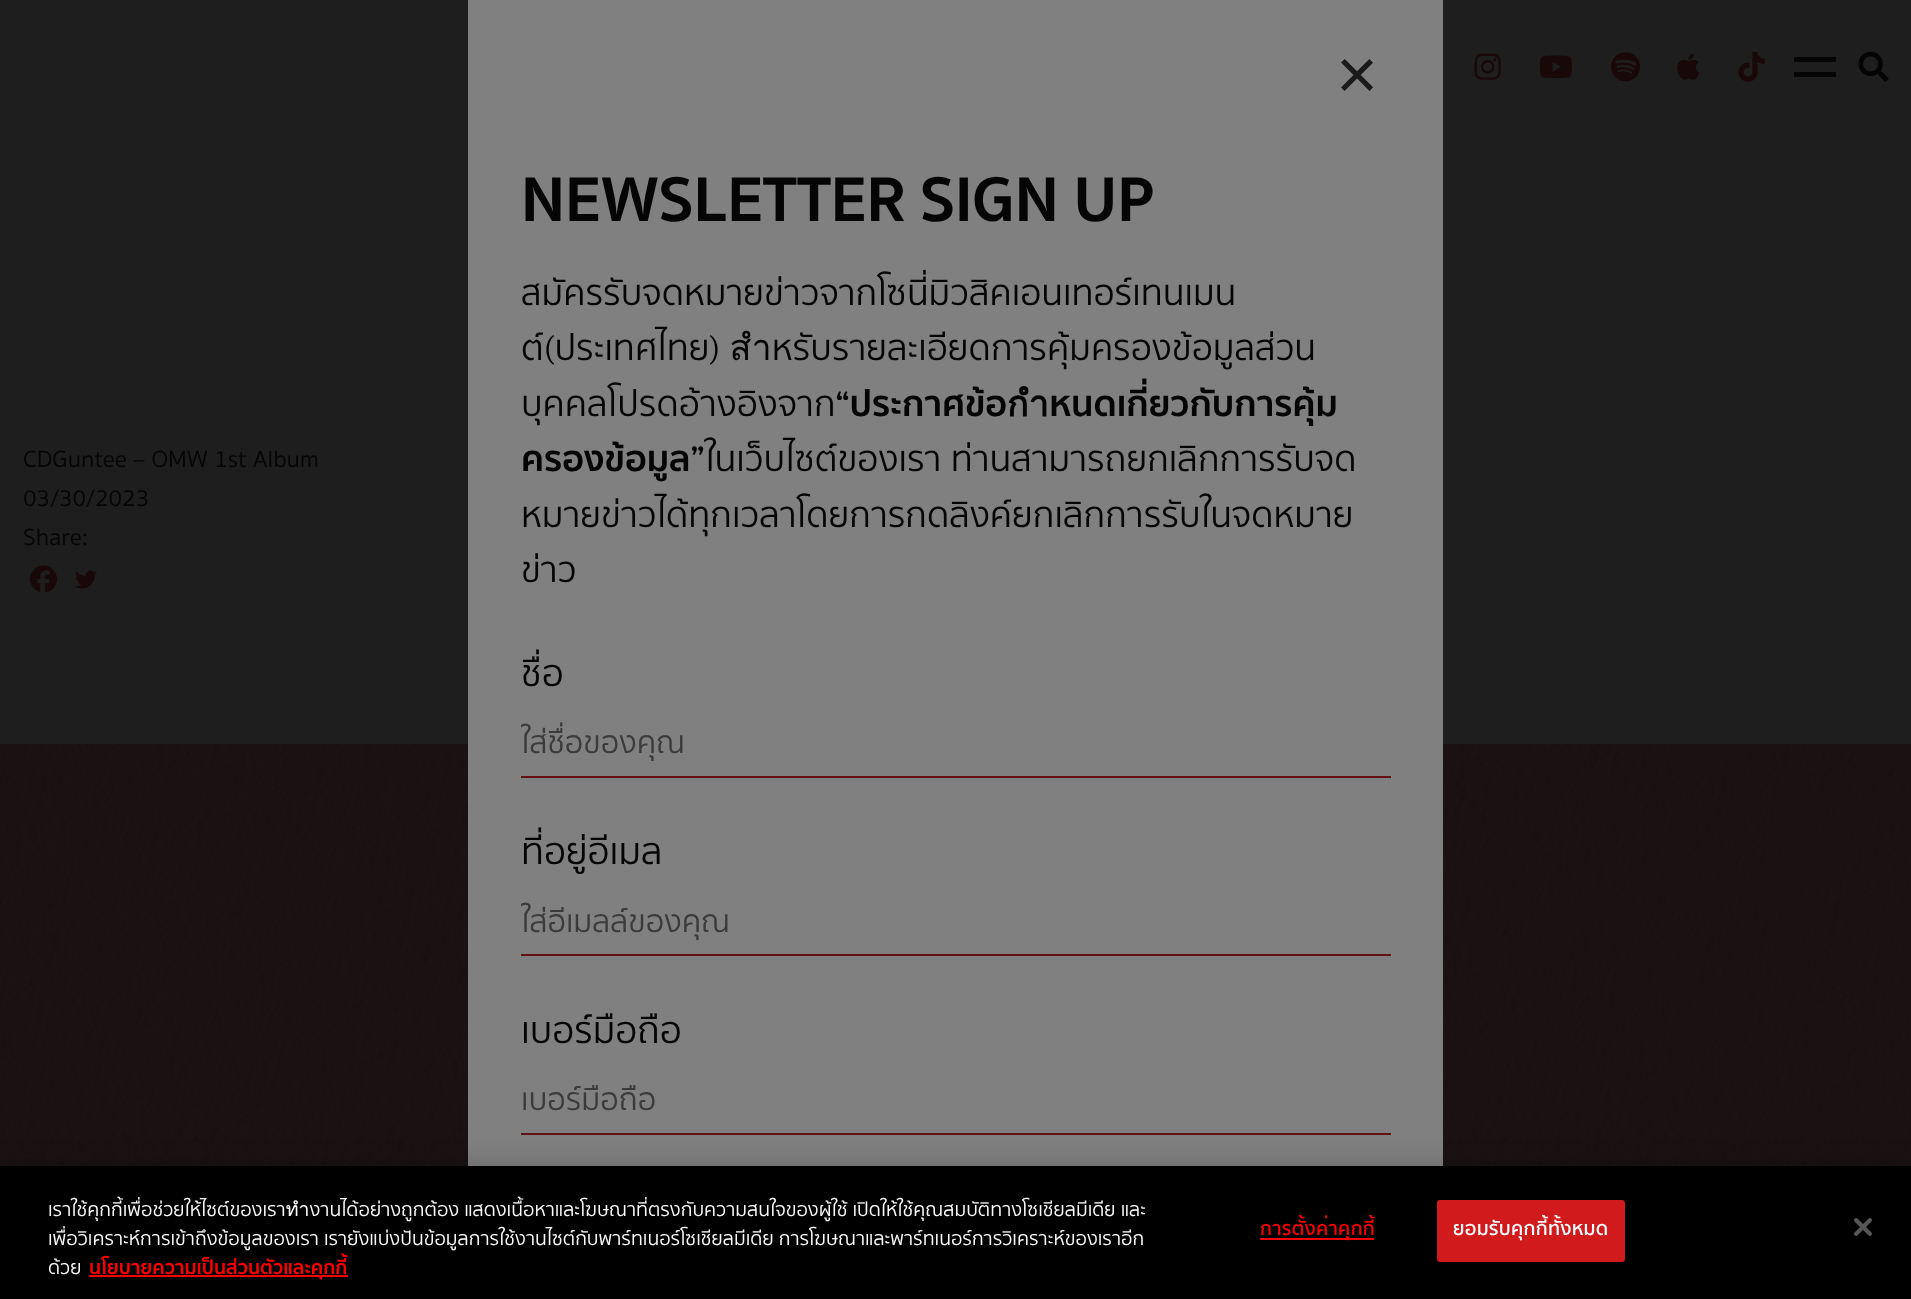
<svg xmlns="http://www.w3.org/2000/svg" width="1911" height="1299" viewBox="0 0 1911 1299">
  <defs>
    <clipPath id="clip1"><rect x="521" y="719" width="870" height="49"/></clipPath>
    <clipPath id="clip2"><rect x="521" y="897" width="870" height="50"/></clipPath>
    <clipPath id="clip3"><rect x="48" y="1196" width="1098" height="88"/></clipPath>
  </defs>
  <rect width="100%" height="100%" fill="rgb(30,30,30)"/>
  <g font-family="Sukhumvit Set" font-size="24" fill="rgb(5,5,5)">
    <text>
      <tspan x="23" y="467">CDGuntee – OMW 1st Album</tspan>
      <tspan x="23" y="506">03/30/2023</tspan>
      <tspan x="23" y="545">Share:</tspan>
    </text>
  </g>
  <image x="30" y="565" width="27" height="28" href="pic1.png"/>
  <image x="75" y="570" width="22" height="19" href="pic2.png"/>
  <rect x="0" y="744" width="1911" height="422" fill="rgb(24,8,9)"/>
  <image x="0" y="744" width="1911" height="422" href="pic9.png"/>
  <rect x="468" y="0" width="975" height="1166" fill="rgb(128,128,128)"/>
  <text x="1336" y="99" font-family="Liberation Sans" font-size="72" fill="rgb(26,26,26)">×</text>
  <text x="521" y="221" font-family="Sukhumvit Set" font-size="64.5" font-weight="bold" fill="rgb(5,5,5)">NEWSLETTER SIGN UP</text>
  <g font-family="Sukhumvit Set" font-size="36" fill="rgb(5,5,5)">
    <text>
      <tspan x="521" y="305">สมัครรับจดหมายข่าวจากโซนี่มิวสิคเอนเทอร์เทนเมน</tspan>
      <tspan x="521" y="360">ต์(ประเทศไทย) สำหรับรายละเอียดการคุ้มครองข้อมูลส่วน</tspan>
      <tspan x="521" y="416">บุคคลโปรดอ้างอิงจาก</tspan>
    </text>
  </g>
  <g font-family="Sukhumvit Set" font-size="36" font-weight="bold" fill="rgb(5,5,5)">
    <text x="835" y="416">“ประกาศข้อกำหนดเกี่ยวกับการคุ้ม</text>
    <text x="521" y="471">ครองข้อมูล”</text>
  </g>
  <g font-family="Sukhumvit Set" font-size="36" fill="rgb(5,5,5)">
    <text x="705" y="471">ในเว็บไซต์ของเรา ท่านสามารถยกเลิกการรับจด</text>
    <text>
      <tspan x="521" y="527">หมายข่าวได้ทุกเวลาโดยการกดลิงค์ยกเลิกการรับในจดหมาย</tspan>
      <tspan x="521" y="582">ข่าว</tspan>
    </text>
  </g>
  <text x="521" y="686" font-family="Sukhumvit Set" font-size="37.5" fill="rgb(5,5,5)">ชื่อ</text>
  <rect x="521" y="776" width="870" height="2" fill="rgb(99,17,20)"/>
  <g clip-path="url(#clip1)">
    <text x="521" y="753" font-family="Sukhumvit Set" font-size="31.5" fill="rgb(59,59,59)">ใส่ชื่อของคุณ</text>
  </g>
  <text x="521" y="864" font-family="Sukhumvit Set" font-size="37.5" fill="rgb(5,5,5)">ที่อยู่อีเมล</text>
  <rect x="521" y="954" width="870" height="2" fill="rgb(99,17,20)"/>
  <g clip-path="url(#clip2)">
    <text x="521" y="932" font-family="Sukhumvit Set" font-size="31.5" fill="rgb(59,59,59)">ใส่อีเมลล์ของคุณ</text>
  </g>
  <text x="521" y="1043" font-family="Sukhumvit Set" font-size="37.5" fill="rgb(5,5,5)">เบอร์มือถือ</text>
  <rect x="521" y="1133" width="870" height="2" fill="rgb(99,17,20)"/>
  <text x="521" y="1110" font-family="Sukhumvit Set" font-size="31.5" fill="rgb(59,59,59)">เบอร์มือถือ</text>
  <image x="1474" y="53" width="27" height="27" href="pic3.png"/>
  <image x="1539" y="55" width="33" height="23" href="pic4.png"/>
  <image x="1611" y="52" width="30" height="30" href="pic5.png"/>
  <image x="1677" y="53" width="23" height="27" href="pic6.png"/>
  <image x="1738" y="51" width="27" height="31" href="pic7.png"/>
  <rect x="1794" y="72" width="42" height="5" fill="rgb(5,5,5)"/>
  <rect x="1794" y="57" width="42" height="5" fill="rgb(5,5,5)"/>
  <image x="1858" y="51" width="31" height="31" href="pic8.png"/>
  <rect x="0" y="1166" width="1911" height="133" fill="rgba(0,0,0,0.2)" filter="blur(13.5px)"/>
  <rect x="0" y="1166" width="1911" height="133" fill="rgb(0,0,0)"/>
  <text x="48" y="1216" font-family="Sukhumvit Set" font-size="19.5" fill="rgb(253,252,252)">เราใช้คุกกี้เพื่อช่วยให้ไซต์ของเราทำงานได้อย่างถูกต้อง แสดงเนื้อหาและโฆษณาที่ตรงกับความสนใจของผู้ใช้ เปิดให้ใช้คุณสมบัติทางโซเชียลมีเดีย และ</text>
  <g clip-path="url(#clip3)">
    <g font-family="Sukhumvit Set" font-size="19.5" fill="rgb(253,252,252)">
      <text>
        <tspan x="48" y="1245">เพื่อวิเคราะห์การเข้าถึงข้อมูลของเรา เรายังแบ่งปันข้อมูลการใช้งานไซต์กับพาร์ทเนอร์โซเชียลมีเดีย การโฆษณาและพาร์ทเนอร์การวิเคราะห์ของเราอีก</tspan>
        <tspan x="48" y="1274">ด้วย</tspan>
      </text>
    </g>
  </g>
  <rect x="89" y="1275" width="259" height="2" fill="rgb(249,0,0)"/>
  <text x="89" y="1274" font-family="Sukhumvit Set" font-size="19.5" font-weight="bold" fill="rgb(249,0,0)">นโยบายความเป็นส่วนตัวและคุกกี้</text>
  <rect x="1260" y="1238" width="114" height="2" fill="rgb(249,0,0)"/>
  <text x="1260" y="1235" font-family="Sukhumvit Set" font-size="19.5" font-weight="600" letter-spacing="0.25" fill="rgb(249,0,0)">การตั้งค่าคุกกี้</text>
  <rect x="1438" y="1201" width="186" height="60" rx="2" fill="rgb(209,26,28)" stroke="rgb(209,26,28)" stroke-width="2"/>
  <text x="1453" y="1235" font-family="Sukhumvit Set" font-size="19.5" font-weight="600" letter-spacing="0.25" fill="rgb(253,252,252)">ยอมรับคุกกี้ทั้งหมด</text>
  <image x="1854" y="1218" width="18" height="18" href="pic10.png"/>
</svg>
